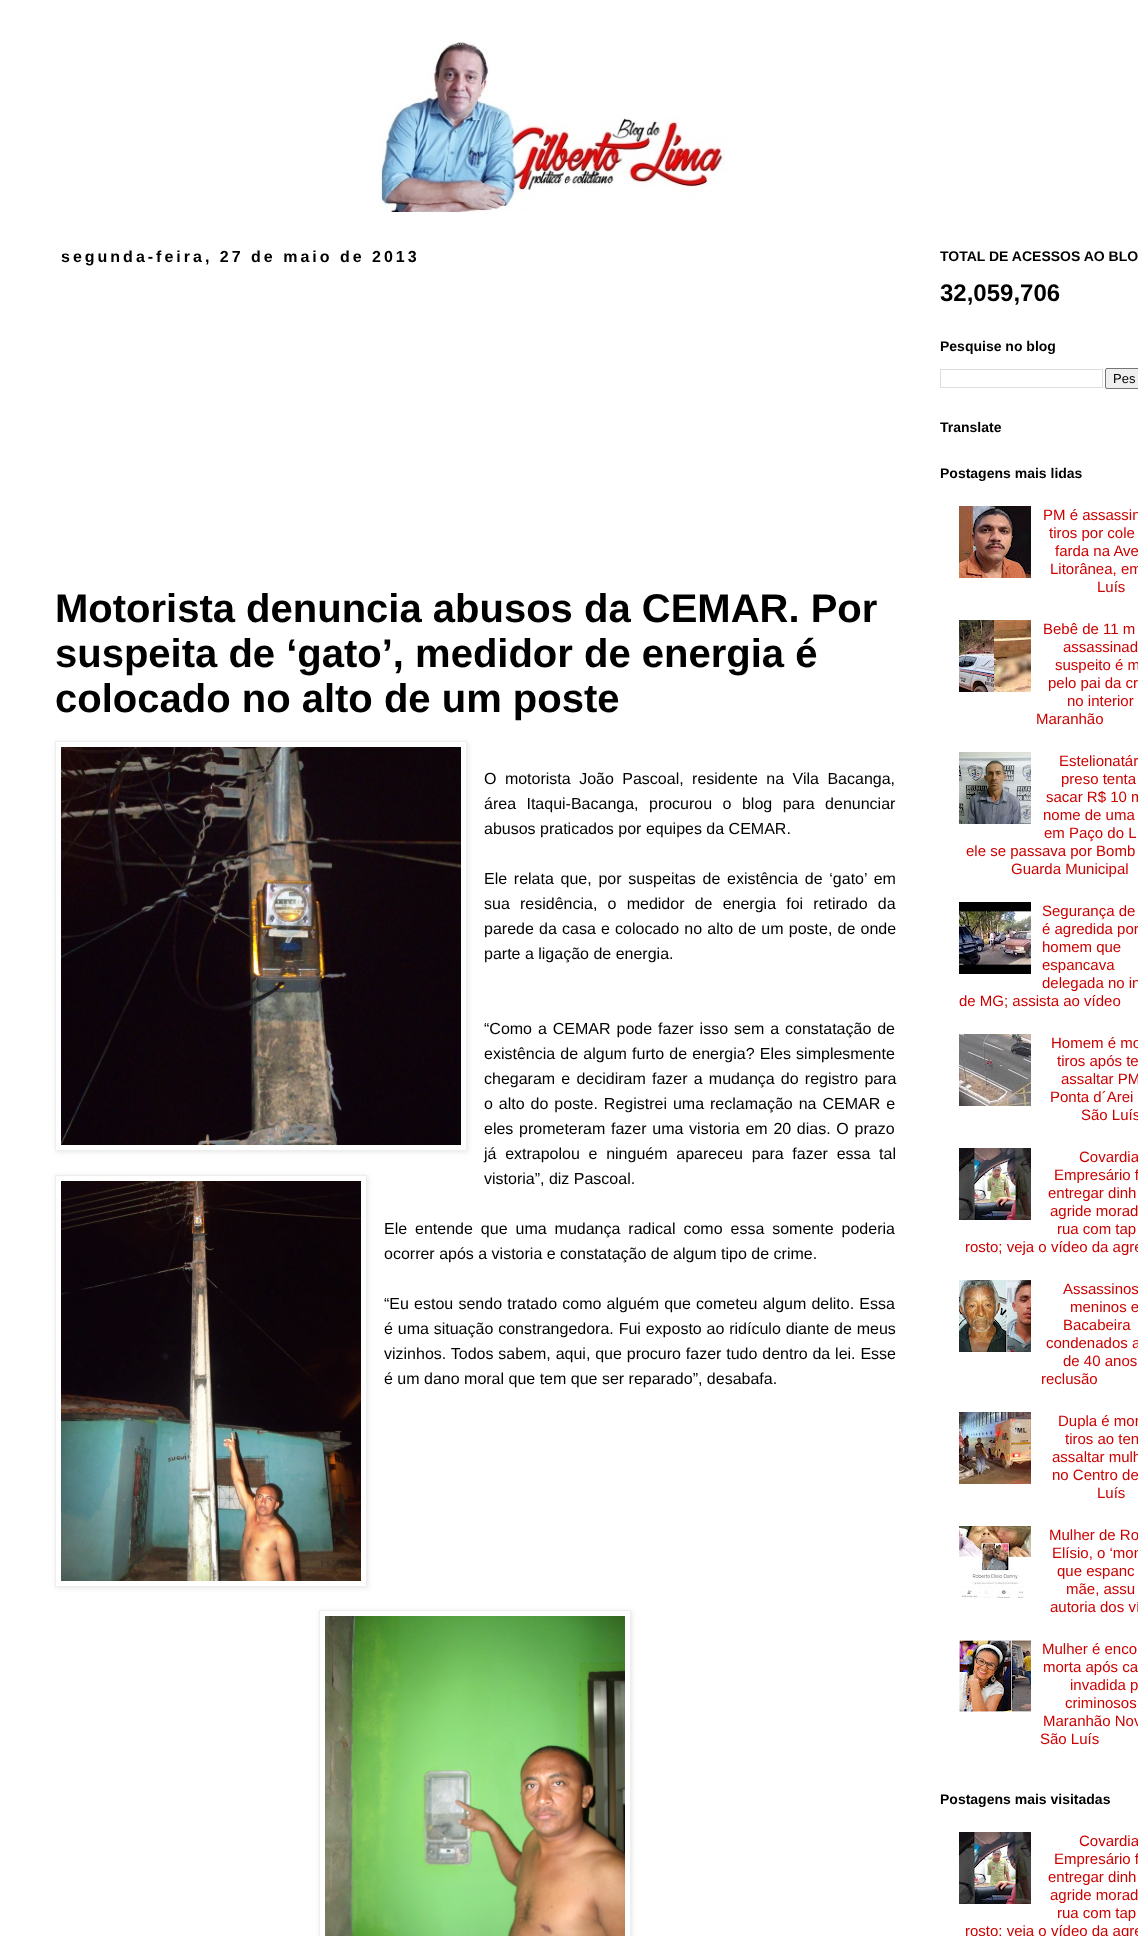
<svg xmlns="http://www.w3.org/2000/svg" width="1138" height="1936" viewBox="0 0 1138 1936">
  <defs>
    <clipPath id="clip1"><path d="M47 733H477V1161H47ZM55 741H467V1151H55Z" clip-rule="evenodd"/></clipPath>
    <clipPath id="clip2"><path d="M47 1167H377V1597H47ZM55 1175H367V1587H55Z" clip-rule="evenodd"/></clipPath>
    <clipPath id="clip3"><path d="M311 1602H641V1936H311ZM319 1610H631V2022H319Z" clip-rule="evenodd"/></clipPath>
  </defs>
  <rect width="100%" height="100%" fill="rgb(255,255,255)"/>
  <image x="378" y="41" width="350" height="172" href="pic1.png"/>
  <text x="61" y="262" font-family="Liberation Sans" font-size="16" font-weight="bold" letter-spacing="3" fill="rgb(0,0,0)">segunda-feira, 27 de maio de 2013</text>
  <g font-family="Liberation Sans" font-size="40" font-weight="bold" fill="rgb(0,0,0)">
    <text>
      <tspan x="55" y="622">Motorista denuncia abusos da CEMAR. Por</tspan>
      <tspan x="55" y="667">suspeita de ‘gato’, medidor de energia é</tspan>
      <tspan x="55" y="712">colocado no alto de um poste</tspan>
    </text>
  </g>
  <g clip-path="url(#clip1)">
    <rect x="56" y="742" width="412" height="410" fill="rgba(0,0,0,0.1)" filter="blur(2.5px)"/>
  </g>
  <rect x="55.5" y="741.5" width="411" height="409" fill="none" stroke="rgb(238,238,238)"/>
  <image x="61" y="747" width="400" height="398" href="pic2.png"/>
  <g font-family="Liberation Sans" font-size="16" fill="rgb(0,0,0)">
    <text>
      <tspan x="484" y="784" word-spacing="4">O motorista João Pascoal, residente na Vila Bacanga,</tspan>
      <tspan x="484" y="809" word-spacing="6">área Itaqui-Bacanga, procurou o blog para denunciar</tspan>
      <tspan x="484" y="834">abusos praticados por equipes da CEMAR.</tspan>
    </text>
    <text>
      <tspan x="484" y="884" word-spacing="2.25">Ele relata que, por suspeitas de existência de ‘gato’ em</tspan>
      <tspan x="484" y="909" word-spacing="5.75">sua residência, o medidor de energia foi retirado da</tspan>
      <tspan x="484" y="934" word-spacing="0.75">parede da casa e colocado no alto de um poste, de onde</tspan>
      <tspan x="484" y="959">parte a ligação de energia.</tspan>
    </text>
    <text>
      <tspan x="484" y="1034" word-spacing="1.5">“Como a CEMAR pode fazer isso sem a constatação de</tspan>
      <tspan x="484" y="1059" word-spacing="0.75">existência de algum furto de energia? Eles simplesmente</tspan>
      <tspan x="484" y="1084" word-spacing="1.75">chegaram e decidiram fazer a mudança do registro para</tspan>
      <tspan x="484" y="1109" word-spacing="1.5">o alto do poste. Registrei uma reclamação na CEMAR e</tspan>
      <tspan x="484" y="1134" word-spacing="1.25">eles prometeram fazer uma vistoria em 20 dias. O prazo</tspan>
      <tspan x="484" y="1159" word-spacing="4.25">já extrapolou e ninguém apareceu para fazer essa tal</tspan>
      <tspan x="484" y="1184">vistoria”, diz Pascoal.</tspan>
    </text>
  </g>
  <g clip-path="url(#clip2)">
    <rect x="56" y="1176" width="312" height="412" fill="rgba(0,0,0,0.1)" filter="blur(2.5px)"/>
  </g>
  <rect x="55.5" y="1175.5" width="311" height="411" fill="none" stroke="rgb(238,238,238)"/>
  <image x="61" y="1181" width="300" height="400" href="pic3.png"/>
  <g font-family="Liberation Sans" font-size="16" fill="rgb(0,0,0)">
    <text>
      <tspan x="384" y="1234" word-spacing="3.5">Ele entende que uma mudança radical como essa somente poderia</tspan>
      <tspan x="384" y="1259">ocorrer após a vistoria e constatação de algum tipo de crime.</tspan>
    </text>
    <text>
      <tspan x="384" y="1309" word-spacing="0.75">“Eu estou sendo tratado como alguém que cometeu algum delito. Essa</tspan>
      <tspan x="384" y="1334" word-spacing="0.4">é uma situação constrangedora. Fui exposto ao ridículo diante de meus</tspan>
      <tspan x="384" y="1359" word-spacing="0.4">vizinhos. Todos sabem, aqui, que procuro fazer tudo dentro da lei. Esse</tspan>
      <tspan x="384" y="1384">é um dano moral que tem que ser reparado”, desabafa.</tspan>
    </text>
  </g>
  <g clip-path="url(#clip3)">
    <rect x="320" y="1611" width="312" height="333" fill="rgba(0,0,0,0.1)" filter="blur(2.5px)"/>
  </g>
  <rect x="319.5" y="1610.5" width="311" height="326" fill="none" stroke="rgb(238,238,238)"/>
  <image x="325" y="1616" width="300" height="320" href="pic4.png"/>
  <text x="940" y="261" font-family="Liberation Sans" font-size="14" font-weight="bold" fill="rgb(0,0,0)">TOTAL DE ACESSOS AO BLO</text>
  <text x="940" y="301" font-family="Liberation Sans" font-size="24" font-weight="bold" fill="rgb(0,0,0)">32,059,706</text>
  <text x="940" y="351" font-family="Liberation Sans" font-size="14" font-weight="bold" fill="rgb(0,0,0)">Pesquise no blog</text>
  <rect x="940.5" y="369.5" width="162" height="18" fill="none" stroke="rgb(221,221,221)"/>
  <rect x="1105.5" y="368.5" width="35" height="20" rx="1.5" fill="rgb(239,239,239)" stroke="rgb(118,118,118)"/>
  <text x="1113" y="383" font-family="Liberation Sans" font-size="13" fill="rgb(0,0,0)">Pes</text>
  <g font-family="Liberation Sans" font-size="14" font-weight="bold" fill="rgb(0,0,0)">
    <text x="940" y="432">Translate</text>
    <text x="940" y="478">Postagens mais lidas</text>
  </g>
  <image x="959" y="506" width="72" height="72" href="pic5.png"/>
  <g font-family="Liberation Sans" font-size="15" fill="rgb(204,0,0)">
    <text x="1043" y="520">PM é assassin</text>
    <text x="1049" y="538">tiros por cole</text>
    <text x="1055" y="556">farda na Ave</text>
    <text x="1050" y="574">Litorânea, em</text>
    <text x="1097" y="592">Luís</text>
  </g>
  <image x="959" y="620" width="72" height="72" href="pic6.png"/>
  <g font-family="Liberation Sans" font-size="15" fill="rgb(204,0,0)">
    <text x="1043" y="634">Bebê de 11 m</text>
    <text x="1063" y="652">assassinad</text>
    <text x="1055" y="670">suspeito é m</text>
    <text x="1048" y="688">pelo pai da cr</text>
    <text x="1067" y="706">no interior</text>
    <text x="1036" y="724">Maranhão</text>
  </g>
  <image x="959" y="752" width="72" height="72" href="pic7.png"/>
  <g font-family="Liberation Sans" font-size="15" fill="rgb(204,0,0)">
    <text x="1059" y="766">Estelionatár</text>
    <text x="1061" y="784">preso tenta</text>
    <text x="1046" y="802">sacar R$ 10 m</text>
    <text x="1043" y="820">nome de uma</text>
    <text x="1044" y="838">em Paço do L</text>
    <text x="966" y="856">ele se passava por Bomb</text>
    <text x="1011" y="874">Guarda Municipal</text>
  </g>
  <image x="959" y="902" width="72" height="72" href="pic8.png"/>
  <g font-family="Liberation Sans" font-size="15" fill="rgb(204,0,0)">
    <text>
      <tspan x="1042" y="916">Segurança de</tspan>
      <tspan x="1042" y="934">é agredida por</tspan>
      <tspan x="1042" y="952">homem que</tspan>
      <tspan x="1042" y="970">espancava</tspan>
      <tspan x="1042" y="988">delegada no in</tspan>
    </text>
    <text x="959" y="1006">de MG; assista ao vídeo</text>
  </g>
  <image x="959" y="1034" width="72" height="72" href="pic9.png"/>
  <g font-family="Liberation Sans" font-size="15" fill="rgb(204,0,0)">
    <text x="1051" y="1048">Homem é mo</text>
    <text x="1057" y="1066">tiros após te</text>
    <text x="1061" y="1084">assaltar PM</text>
    <text x="1050" y="1102">Ponta d´Arei</text>
    <text x="1081" y="1120">São Luís</text>
  </g>
  <image x="959" y="1148" width="72" height="72" href="pic10.png"/>
  <g font-family="Liberation Sans" font-size="15" fill="rgb(204,0,0)">
    <text x="1079" y="1162">Covardia</text>
    <text x="1054" y="1180">Empresário f</text>
    <text x="1048" y="1198">entregar dinh</text>
    <text x="1050" y="1216">agride morad</text>
    <text x="1057" y="1234">rua com tap</text>
    <text x="965" y="1252">rosto; veja o vídeo da agre</text>
  </g>
  <image x="959" y="1280" width="72" height="72" href="pic11.png"/>
  <g font-family="Liberation Sans" font-size="15" fill="rgb(204,0,0)">
    <text x="1063" y="1294">Assassinos</text>
    <text x="1070" y="1312">meninos e</text>
    <text x="1063" y="1330">Bacabeira</text>
    <text x="1046" y="1348">condenados a</text>
    <text x="1063" y="1366">de 40 anos</text>
    <text x="1041" y="1384">reclusão</text>
  </g>
  <image x="959" y="1412" width="72" height="72" href="pic12.png"/>
  <g font-family="Liberation Sans" font-size="15" fill="rgb(204,0,0)">
    <text x="1058" y="1426">Dupla é mor</text>
    <text x="1065" y="1444">tiros ao ten</text>
    <text>
      <tspan x="1052" y="1462">assaltar mulh</tspan>
      <tspan x="1052" y="1480">no Centro de</tspan>
    </text>
    <text x="1097" y="1498">Luís</text>
  </g>
  <image x="959" y="1526" width="72" height="72" href="pic13.png"/>
  <g font-family="Liberation Sans" font-size="15" fill="rgb(204,0,0)">
    <text x="1049" y="1540">Mulher de Ro</text>
    <text x="1052" y="1558">Elísio, o ‘mon</text>
    <text x="1057" y="1576">que espanc</text>
    <text x="1066" y="1594">mãe, assu</text>
    <text x="1050" y="1612">autoria dos ví</text>
  </g>
  <image x="959" y="1640" width="72" height="72" href="pic14.png"/>
  <g font-family="Liberation Sans" font-size="15" fill="rgb(204,0,0)">
    <text x="1042" y="1654">Mulher é enco</text>
    <text x="1043" y="1672">morta após ca</text>
    <text x="1070" y="1690">invadida p</text>
    <text x="1065" y="1708">criminosos</text>
    <text x="1043" y="1726">Maranhão Nov</text>
    <text x="1040" y="1744">São Luís</text>
  </g>
  <text x="940" y="1804" font-family="Liberation Sans" font-size="14" font-weight="bold" fill="rgb(0,0,0)">Postagens mais visitadas</text>
  <image x="959" y="1832" width="72" height="72" href="pic10.png"/>
  <g font-family="Liberation Sans" font-size="15" fill="rgb(204,0,0)">
    <text x="1079" y="1846">Covardia</text>
    <text x="1054" y="1864">Empresário f</text>
    <text x="1048" y="1882">entregar dinh</text>
    <text x="1050" y="1900">agride morad</text>
    <text x="1057" y="1918">rua com tap</text>
    <text x="965" y="1936">rosto; veja o vídeo da agre</text>
  </g>
</svg>
